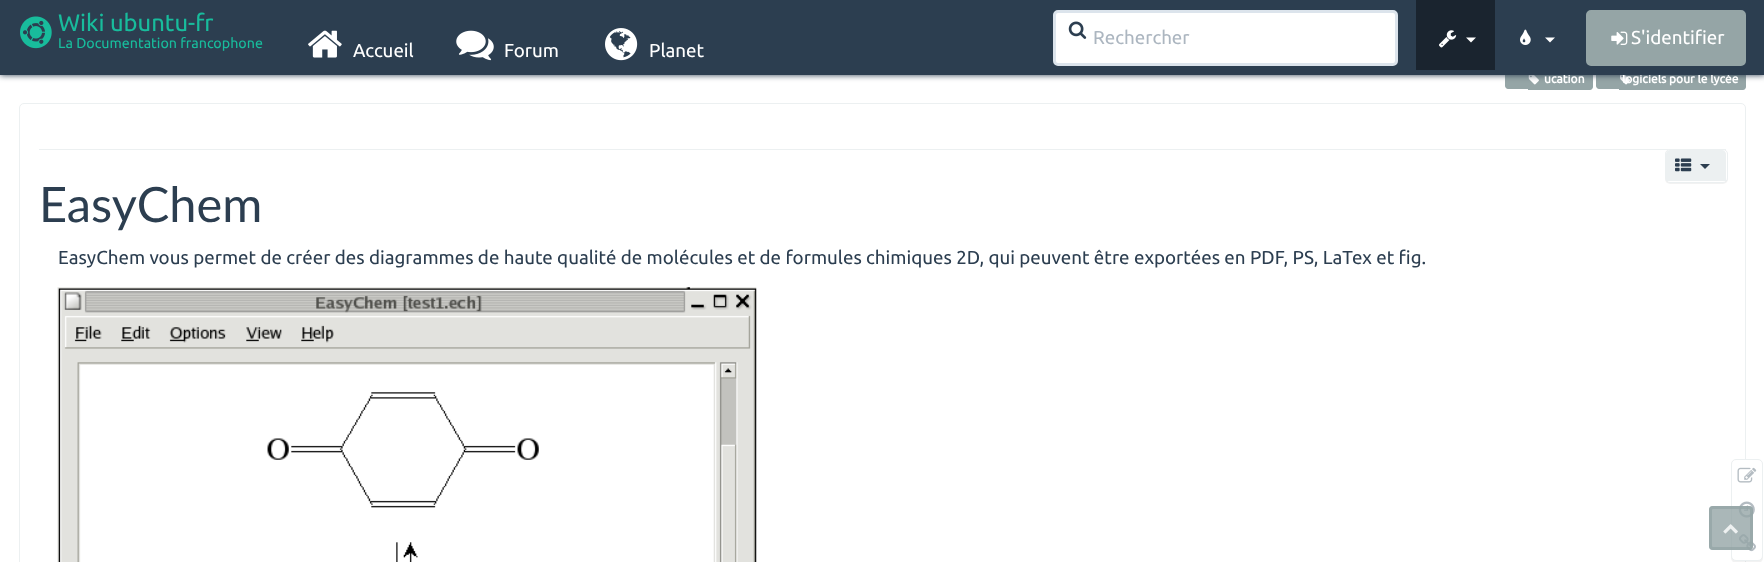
<svg xmlns="http://www.w3.org/2000/svg" width="1764" height="562" viewBox="0 0 1764 562">
  <rect width="100%" height="100%" fill="rgb(255,255,255)"/>
  <path d="M1508 71H1528V89H1508C1506.5 89 1505 87.5 1505 86V74C1505 72.5 1506.5 71 1508 71Z" fill="rgb(149,165,166)"/>
  <rect x="1528" y="70" width="2" height="20" fill="rgb(149,165,166)"/>
  <path d="M1530 70H1590C1591.5 70 1593 71.5 1593 73V87C1593 88.5 1591.5 90 1590 90H1530Z" fill="rgb(149,165,166)"/>
  <image x="1528" y="75" width="11" height="10" href="pic9.png"/>
  <path d="M1599 71H1619V89H1599C1597.5 89 1596 87.5 1596 86V74C1596 72.5 1597.5 71 1599 71Z" fill="rgb(149,165,166)"/>
  <rect x="1619" y="70" width="2" height="20" fill="rgb(149,165,166)"/>
  <path d="M1621 70H1743C1744.5 70 1746 71.5 1746 73V87C1746 88.5 1744.5 90 1743 90H1621Z" fill="rgb(149,165,166)"/>
  <image x="1620" y="75" width="11" height="10" href="pic10.png"/>
  <rect x="0" y="0" width="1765" height="75" fill="rgb(44,62,80)" filter="blur(3px)"/>
  <g font-family="Ubuntu" font-size="12" font-weight="bold" fill="rgb(255,255,255)">
    <text x="1544" y="83">ucation</text>
    <text x="1622" y="83">logiciels pour le lycée</text>
  </g>
  <rect x="0" y="0" width="1764" height="75" fill="rgb(44,62,80)"/>
  <image x="20" y="16" width="32" height="33" href="pic1.png"/>
  <text x="58" y="31" font-family="Ubuntu" font-size="23.75" fill="rgb(24,188,156)">Wiki ubuntu-fr</text>
  <text x="58" y="48" font-family="Ubuntu" font-size="14.25" fill="rgb(24,188,156)">La Documentation francophone</text>
  <rect x="1054.5" y="11.5" width="342" height="53" rx="3.5" fill="rgb(255,255,255)" stroke="rgb(220,228,236)" stroke-width="3"/>
  <image x="1068" y="21" width="19" height="18" href="pic2.png"/>
  <text x="1093" y="44" font-family="Ubuntu" font-size="18.75" fill="rgb(172,182,192)">Rechercher</text>
  <rect x="1416" y="0" width="79" height="70" fill="rgb(26,36,47)"/>
  <image x="1439" y="30" width="18" height="18" href="pic3.png"/>
  <path d="M1466 37.5H1476L1471 42.5Z" fill="rgb(255,255,255)"/>
  <image x="1520" y="29" width="11" height="16" href="pic4.png"/>
  <path d="M1545 37.5H1555L1550 42.5Z" fill="rgb(255,255,255)"/>
  <rect x="1587.5" y="11.5" width="157" height="53" rx="3.5" fill="rgb(149,165,166)" stroke="rgb(149,165,166)" stroke-width="3"/>
  <image x="1611" y="31" width="17" height="14" href="pic5.png"/>
  <text x="1631" y="44" font-family="Ubuntu" font-size="18.75" fill="rgb(255,255,255)">S'identifier</text>
  <image x="308" y="30" width="34" height="28" href="pic6.png"/>
  <text x="353" y="57" font-family="Ubuntu" font-size="18.75" fill="rgb(255,255,255)">Accueil</text>
  <image x="456" y="30" width="38" height="31" href="pic7.png"/>
  <text x="504" y="57" font-family="Ubuntu" font-size="18.75" fill="rgb(255,255,255)">Forum</text>
  <image x="605" y="28" width="33" height="33" href="pic8.png"/>
  <text x="649" y="57" font-family="Ubuntu" font-size="18.75" fill="rgb(255,255,255)">Planet</text>
  <rect x="19.5" y="103.5" width="1726" height="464" rx="4.5" fill="none" stroke="rgb(236,240,241)"/>
  <rect x="39" y="149" width="1687" height="1" fill="rgb(236,240,241)"/>
  <rect x="1665" y="150" width="63" height="34" rx="5" fill="rgba(0,0,0,0.05)" filter="blur(0.5px)"/>
  <rect x="1665.5" y="149.5" width="62" height="33" rx="4.5" fill="rgb(255,255,255)" stroke="rgb(236,240,241)"/>
  <path d="M1670 150H1722C1724 150 1726 152 1726 154V181H1666V154C1666 152 1668 150 1670 150Z" fill="rgb(236,240,241)"/>
  <image x="1675" y="158" width="17" height="14" href="pic11.png"/>
  <path d="M1700 164H1710L1705 169Z" fill="rgb(44,62,80)"/>
  <text x="39" y="222" font-family="Lato" font-size="48.75" fill="rgb(44,62,80)">EasyChem</text>
  <text x="58" y="264" font-family="Ubuntu" font-size="18.75" fill="rgb(44,62,80)">EasyChem vous permet de créer des diagrammes de haute qualité de molécules et de formules chimiques 2D, qui peuvent être exportées en PDF, PS, LaTex et fig.</text>
  <image x="57" y="287" width="700" height="275" href="pic12.png"/>
  <rect x="1731" y="460" width="32" height="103" rx="5" fill="rgba(0,0,0,0.05)" filter="blur(0.5px)"/>
  <rect x="1731.5" y="459.5" width="31" height="101" rx="4.5" fill="rgb(255,255,255)" stroke="rgb(236,240,241)"/>
  <image x="1737" y="467" width="20" height="16" href="pic13.png"/>
  <image x="1738" y="501" width="17" height="17" href="pic14.png"/>
  <image x="1739" y="534" width="17" height="18" href="pic15.png"/>
  <rect x="1709" y="506" width="44" height="44" rx="4" fill="rgba(149,165,166,0.8)"/>
  <rect x="1710.5" y="507.5" width="41" height="41" rx="2.5" fill="none" stroke="rgba(149,165,166,0.8)" stroke-width="3"/>
  <image x="1723" y="524" width="15" height="10" href="pic16.png"/>
</svg>
